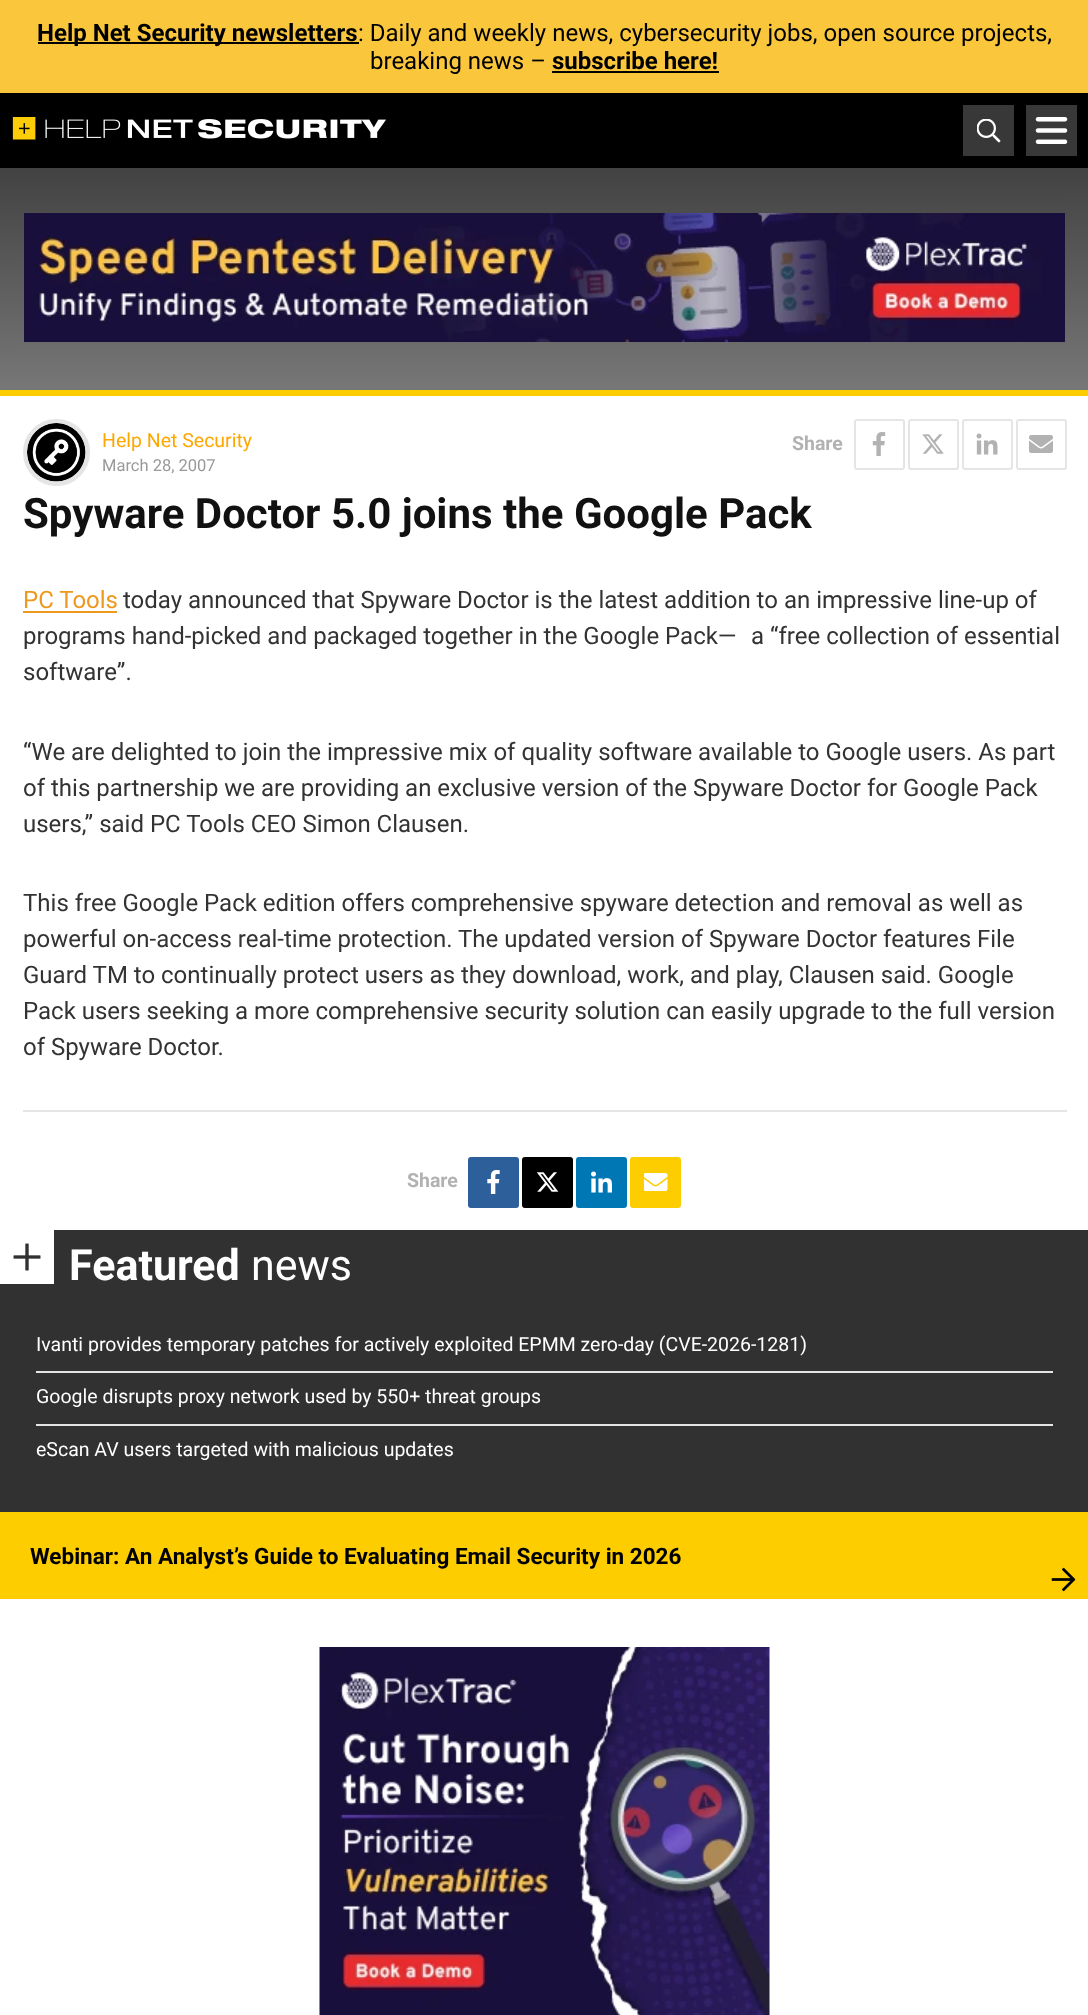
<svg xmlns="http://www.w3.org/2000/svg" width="1088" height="2015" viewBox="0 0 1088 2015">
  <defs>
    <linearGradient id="g1" gradientUnits="userSpaceOnUse" x1="544" y1="0" x2="545" y2="1200"><stop offset="0" stop-color="rgb(26,26,26)"/><stop offset="0.8" stop-color="rgb(255,255,255)"/></linearGradient>
  </defs>
  <rect width="100%" height="100%" fill="rgb(255,255,255)"/>
  <rect x="0" y="168" width="1088" height="222" fill="url(#g1)"/>
  <rect x="0" y="0" width="1088" height="93" fill="rgb(249,198,60)"/>
  <rect x="38" y="42" width="321" height="2" fill="rgb(0,0,0)"/>
  <text x="37" y="41" font-family="Roboto" font-size="24" font-weight="bold" fill="rgb(0,0,0)">Help Net Security newsletters</text>
  <g font-family="Roboto" font-size="24" fill="rgb(0,0,0)">
    <text x="358" y="41">: Daily and weekly news, cybersecurity jobs, open source projects,</text>
    <text x="370" y="69">breaking news –</text>
  </g>
  <text x="552" y="69" font-family="Roboto" font-size="24" font-weight="bold" fill="rgb(0,0,0)">subscribe here!</text>
  <rect x="552" y="71" width="167" height="2" fill="rgb(0,0,0)"/>
  <rect x="0" y="93" width="1088" height="75" fill="rgb(0,0,0)"/>
  <image x="12" y="117" width="374" height="23" href="pic1.png"/>
  <rect x="963" y="105" width="51" height="51" fill="rgb(57,56,56)"/>
  <image x="977" y="119" width="24" height="24" href="pic2.png"/>
  <rect x="1026" y="105" width="51" height="51" fill="rgb(57,56,56)"/>
  <image x="1035" y="117" width="33" height="27" href="pic3.png"/>
  <image x="24" y="213" width="1041" height="129" href="pic4.png"/>
  <rect x="0" y="390" width="1088" height="6" fill="rgb(253,205,0)"/>
  <circle cx="56.5" cy="452.5" r="31" fill="none" stroke="rgb(229,229,229)" stroke-width="5"/>
  <image x="27" y="423" width="59" height="59" href="pic5.png"/>
  <text x="102" y="447" font-family="Roboto" font-size="19.5" fill="rgb(253,167,0)">Help Net Security</text>
  <text x="102" y="471" font-family="Roboto" font-size="16.5" fill="rgb(153,153,153)">March 28, 2007</text>
  <text x="792" y="450" font-family="Roboto" font-size="19.5" font-weight="bold" fill="rgb(178,178,178)">Share</text>
  <rect x="855" y="420" width="49" height="49" rx="2" fill="none" stroke="rgb(229,229,229)" stroke-width="2"/>
  <image x="872" y="432" width="14" height="24" href="pic6.png"/>
  <rect x="909" y="420" width="49" height="49" rx="2" fill="none" stroke="rgb(229,229,229)" stroke-width="2"/>
  <image x="922" y="434" width="22" height="20" href="pic7.png"/>
  <rect x="963" y="420" width="49" height="49" rx="2" fill="none" stroke="rgb(229,229,229)" stroke-width="2"/>
  <image x="976" y="433" width="22" height="22" href="pic8.png"/>
  <rect x="1017" y="420" width="49" height="49" rx="2" fill="none" stroke="rgb(229,229,229)" stroke-width="2"/>
  <image x="1029" y="435" width="24" height="18" href="pic9.png"/>
  <text x="23" y="528" font-family="Roboto" font-size="42" font-weight="bold" fill="rgb(17,17,17)">Spyware Doctor 5.0 joins the Google Pack</text>
  <text x="23" y="608" font-family="Roboto" font-size="24" fill="rgb(236,153,29)">PC Tools</text>
  <rect x="23" y="611" width="94" height="2" fill="rgb(236,153,29)"/>
  <g font-family="Roboto" font-size="24" fill="rgb(51,51,51)">
    <text x="123" y="608">today announced that Spyware Doctor is the latest addition to an impressive line-up of</text>
    <text x="23" y="644">programs hand-picked and packaged together in the Google Pack—</text>
    <text x="751" y="644">a “free collection of essential</text>
    <text x="23" y="680">software”.</text>
    <text>
      <tspan x="23" y="760">“We are delighted to join the impressive mix of quality software available to Google users. As part</tspan>
      <tspan x="23" y="796">of this partnership we are providing an exclusive version of the Spyware Doctor for Google Pack</tspan>
      <tspan x="23" y="832">users,” said PC Tools CEO Simon Clausen.</tspan>
    </text>
    <text>
      <tspan x="23" y="911">This free Google Pack edition offers comprehensive spyware detection and removal as well as</tspan>
      <tspan x="23" y="947">powerful on-access real-time protection. The updated version of Spyware Doctor features File</tspan>
      <tspan x="23" y="983">Guard TM to continually protect users as they download, work, and play, Clausen said. Google</tspan>
      <tspan x="23" y="1019">Pack users seeking a more comprehensive security solution can easily upgrade to the full version</tspan>
      <tspan x="23" y="1055">of Spyware Doctor.</tspan>
    </text>
  </g>
  <rect x="23" y="1110" width="1044" height="2" fill="rgb(229,229,229)"/>
  <text x="407" y="1187" font-family="Roboto" font-size="19.5" font-weight="bold" fill="rgb(178,178,178)">Share</text>
  <rect x="469" y="1158" width="49" height="49" rx="2" fill="rgb(45,95,154)" stroke="rgb(45,95,154)" stroke-width="2"/>
  <image x="487" y="1170" width="13" height="24" href="pic10.png"/>
  <rect x="523" y="1158" width="49" height="49" rx="2" fill="rgb(0,0,0)" stroke="rgb(0,0,0)" stroke-width="2"/>
  <image x="536" y="1172" width="23" height="20" href="pic11.png"/>
  <rect x="577" y="1158" width="49" height="49" rx="2" fill="rgb(0,119,181)" stroke="rgb(0,119,181)" stroke-width="2"/>
  <image x="591" y="1171" width="21" height="22" href="pic12.png"/>
  <rect x="631" y="1158" width="49" height="49" rx="2" fill="rgb(253,205,0)" stroke="rgb(253,205,0)" stroke-width="2"/>
  <image x="644" y="1173" width="24" height="18" href="pic13.png"/>
  <rect x="0" y="1230" width="1088" height="282" fill="rgb(49,49,49)"/>
  <rect x="0" y="1230" width="54" height="54" fill="rgb(255,255,255)"/>
  <image x="13" y="1243" width="28" height="28" href="pic14.png"/>
  <text x="69" y="1280" font-family="Roboto" font-size="43" font-weight="bold" fill="rgb(255,255,255)">Featured</text>
  <text x="251" y="1280" font-family="Roboto" font-size="43" fill="rgb(255,255,255)">news</text>
  <text x="36" y="1351" font-family="Roboto" font-size="19.5" fill="rgb(255,255,255)">Ivanti provides temporary patches for actively exploited EPMM zero-day (CVE-2026-1281)</text>
  <rect x="36" y="1371" width="1017" height="2" fill="rgb(229,229,229)"/>
  <text x="36" y="1403" font-family="Roboto" font-size="19.5" fill="rgb(255,255,255)">Google disrupts proxy network used by 550+ threat groups</text>
  <rect x="36" y="1424" width="1017" height="2" fill="rgb(229,229,229)"/>
  <text x="36" y="1456" font-family="Roboto" font-size="19.5" fill="rgb(255,255,255)">eScan AV users targeted with malicious updates</text>
  <rect x="0" y="1512" width="1088" height="87" fill="rgb(253,205,0)"/>
  <image x="1051" y="1567" width="25" height="25" href="pic15.png"/>
  <text x="30" y="1564" font-family="Roboto" font-size="22.5" font-weight="bold" fill="rgb(0,0,0)">Webinar: An Analyst’s Guide to Evaluating Email Security in 2026</text>
  <image x="319" y="1647" width="451" height="368" href="pic16.png"/>
</svg>
